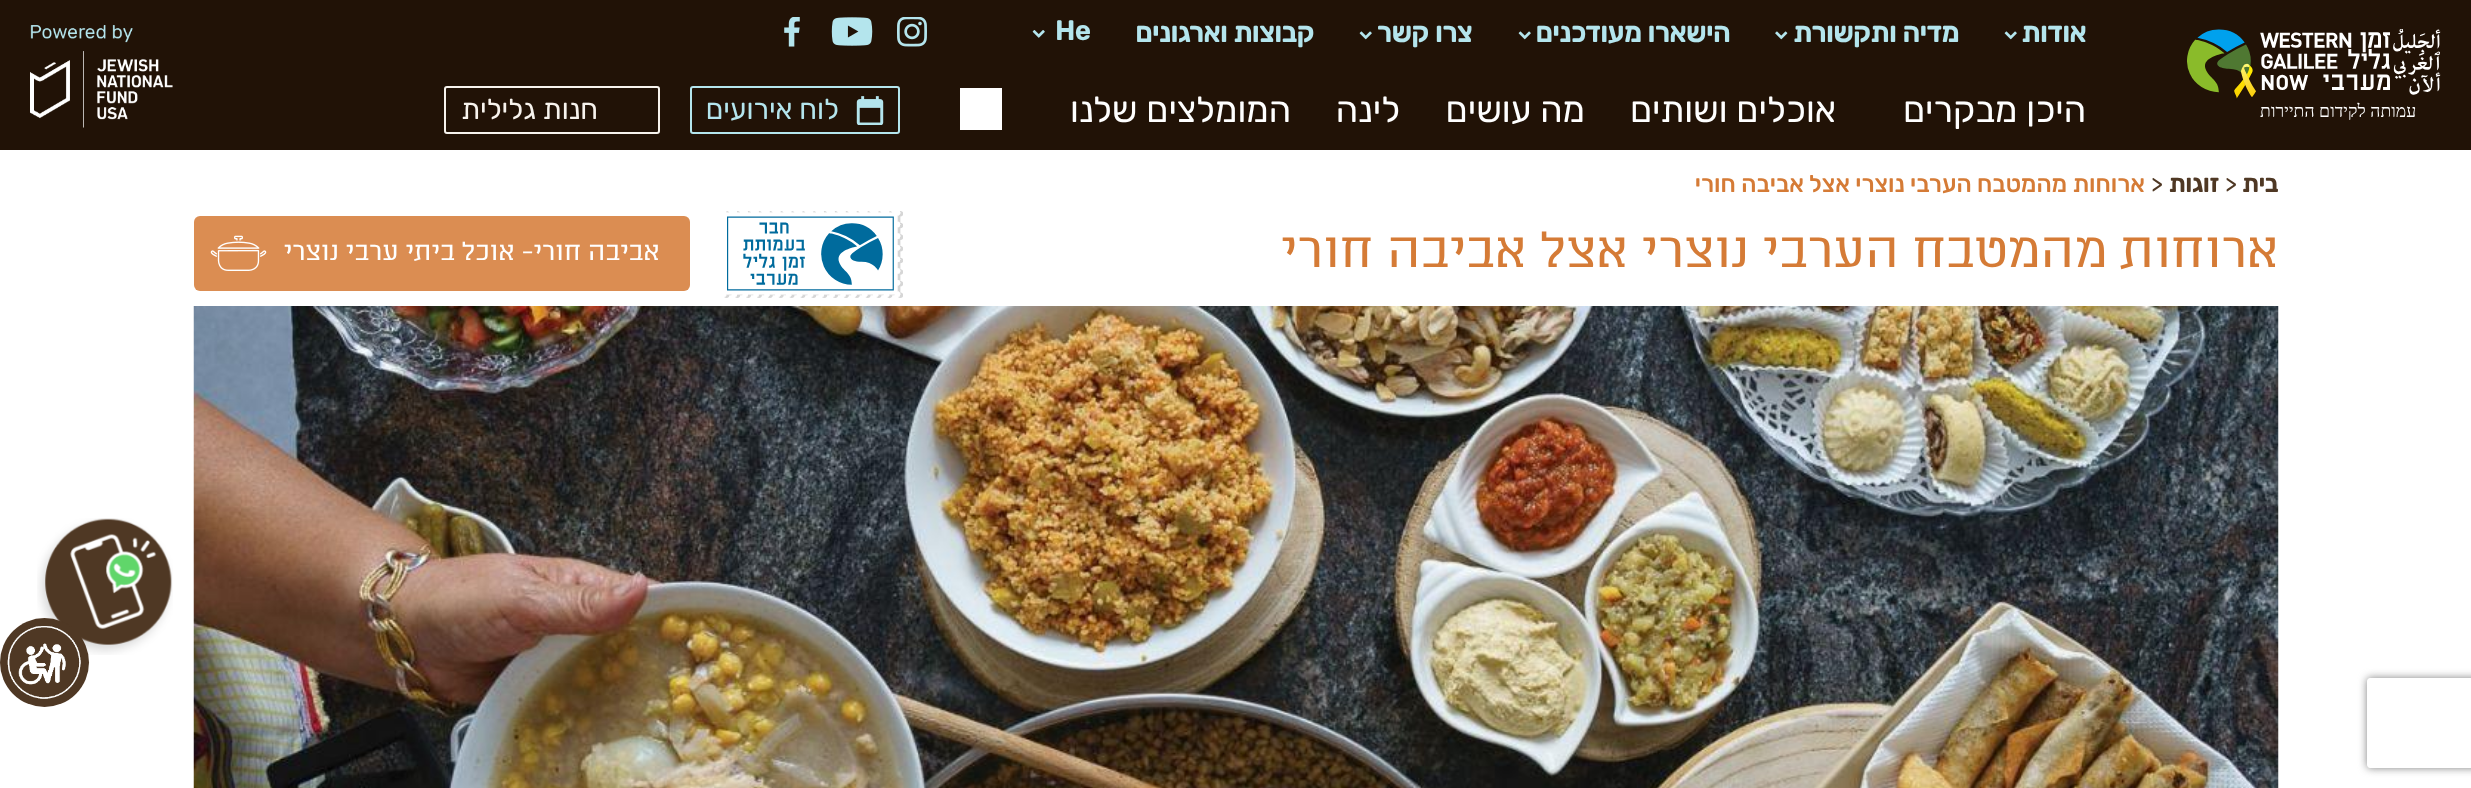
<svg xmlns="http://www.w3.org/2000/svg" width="2471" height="788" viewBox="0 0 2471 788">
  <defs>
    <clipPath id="clip1"><path d="M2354 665H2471V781H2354ZM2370 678H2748C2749.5 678 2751 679.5 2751 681V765C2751 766.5 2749.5 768 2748 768H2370C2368.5 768 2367 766.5 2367 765V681C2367 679.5 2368.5 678 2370 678Z" clip-rule="evenodd"/></clipPath>
  </defs>
  <rect width="100%" height="100%" fill="rgb(255,255,255)"/>
  <rect x="0" y="0" width="2471" height="150" fill="rgb(33,18,6)"/>
  <image x="2187" y="29" width="254" height="91" href="pic1.png"/>
  <text x="2086" y="42" font-family="Rubik" font-size="27" font-weight="bold" direction="rtl" fill="rgb(180,229,237)">אודות</text>
  <image x="2004" y="31" width="13" height="9" href="pic2.png"/>
  <text x="1959" y="42" font-family="Rubik" font-size="27" font-weight="bold" direction="rtl" fill="rgb(180,229,237)">מדיה ותקשורת</text>
  <image x="1775" y="31" width="13" height="9" href="pic3.png"/>
  <text x="1730" y="42" font-family="Rubik" font-size="27" font-weight="bold" direction="rtl" fill="rgb(180,229,237)">הישארו מעודכנים</text>
  <image x="1518" y="31" width="13" height="9" href="pic2.png"/>
  <text x="1472" y="42" font-family="Rubik" font-size="27" font-weight="bold" direction="rtl" fill="rgb(180,229,237)">צרו קשר</text>
  <image x="1359" y="31" width="13" height="9" href="pic2.png"/>
  <text x="1314" y="42" font-family="Rubik" font-size="27" font-weight="bold" direction="rtl" fill="rgb(180,229,237)">קבוצות וארגונים</text>
  <text x="1055" y="40" font-family="Rubik" font-size="27" font-weight="bold" fill="rgb(180,229,237)">He</text>
  <image x="1032" y="30" width="13" height="8" href="pic4.png"/>
  <image x="897" y="17" width="30" height="30" href="pic5.png"/>
  <image x="831" y="17" width="42" height="29" href="pic6.png"/>
  <image x="784" y="17" width="16" height="30" href="pic7.png"/>
  <g font-family="Rubik" font-size="36" direction="rtl" fill="rgb(255,255,255)">
    <text x="2086" y="122">היכן מבקרים</text>
    <text x="1836" y="122">אוכלים ושותים</text>
    <text x="1585" y="122">מה עושים</text>
    <text x="1400" y="122">לינה</text>
    <text x="1291" y="122">המומלצים שלנו</text>
  </g>
  <rect x="960" y="88" width="42" height="42" fill="rgb(255,255,255)"/>
  <rect x="691" y="87" width="208" height="46" rx="2" fill="none" stroke="rgb(180,229,237)" stroke-width="2"/>
  <image x="856" y="96" width="28" height="29" href="pic8.png"/>
  <text x="839" y="119" font-family="Rubik" font-size="28.5" direction="rtl" fill="rgb(180,229,237)">לוח אירועים</text>
  <rect x="445" y="87" width="214" height="46" rx="2" fill="none" stroke="rgb(247,243,237)" stroke-width="2"/>
  <text x="598" y="119" font-family="Rubik" font-size="28.5" direction="rtl" fill="rgb(247,243,237)">חנות גלילית</text>
  <image x="30" y="25" width="143" height="103" href="pic9.png"/>
  <text x="2278" y="192" font-family="Rubik" font-size="24" font-weight="bold" direction="rtl" fill="rgb(79,56,36)">בית</text>
  <text x="2225" y="192" font-family="Rubik" font-size="24" fill="rgb(79,56,36)">&gt;</text>
  <text x="2219" y="192" font-family="Rubik" font-size="24" font-weight="bold" direction="rtl" fill="rgb(79,56,36)">זוגות</text>
  <text x="2151" y="192" font-family="Rubik" font-size="24" fill="rgb(79,56,36)">&gt;</text>
  <text x="2145" y="192" font-family="Rubik" font-size="24" font-weight="500" direction="rtl" fill="rgb(213,123,54)">ארוחות מהמטבח הערבי נוצרי אצל אביבה חורי</text>
  <text x="2279" y="267" font-family="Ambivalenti" font-size="52.5" direction="rtl" fill="rgb(213,123,54)">ארוחות מהמטבח הערבי נוצרי אצל אביבה חורי</text>
  <image x="724" y="211" width="179" height="88" href="pic10.png"/>
  <rect x="194" y="216" width="496" height="75" rx="6" fill="rgb(219,141,82)"/>
  <text x="660" y="260" font-family="Ambivalenti" font-size="27" direction="rtl" fill="rgb(255,255,255)">אביבה חורי- אוכל ביתי ערבי נוצרי</text>
  <image x="210" y="235" width="57" height="36" href="pic11.png"/>
  <image x="193" y="306" width="2086" height="482" href="pic12.png"/>
  <g clip-path="url(#clip1)">
    <rect x="2367" y="678" width="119" height="90" rx="3" fill="rgb(128,128,128)" filter="blur(4px)"/>
  </g>
  <image x="37" y="518" width="136" height="137" href="pic13.png"/>
  <circle cx="44.5" cy="662.5" r="44.5" fill="rgb(79,56,36)"/>
  <image x="7" y="626" width="74" height="73" href="pic14.png"/>
</svg>
